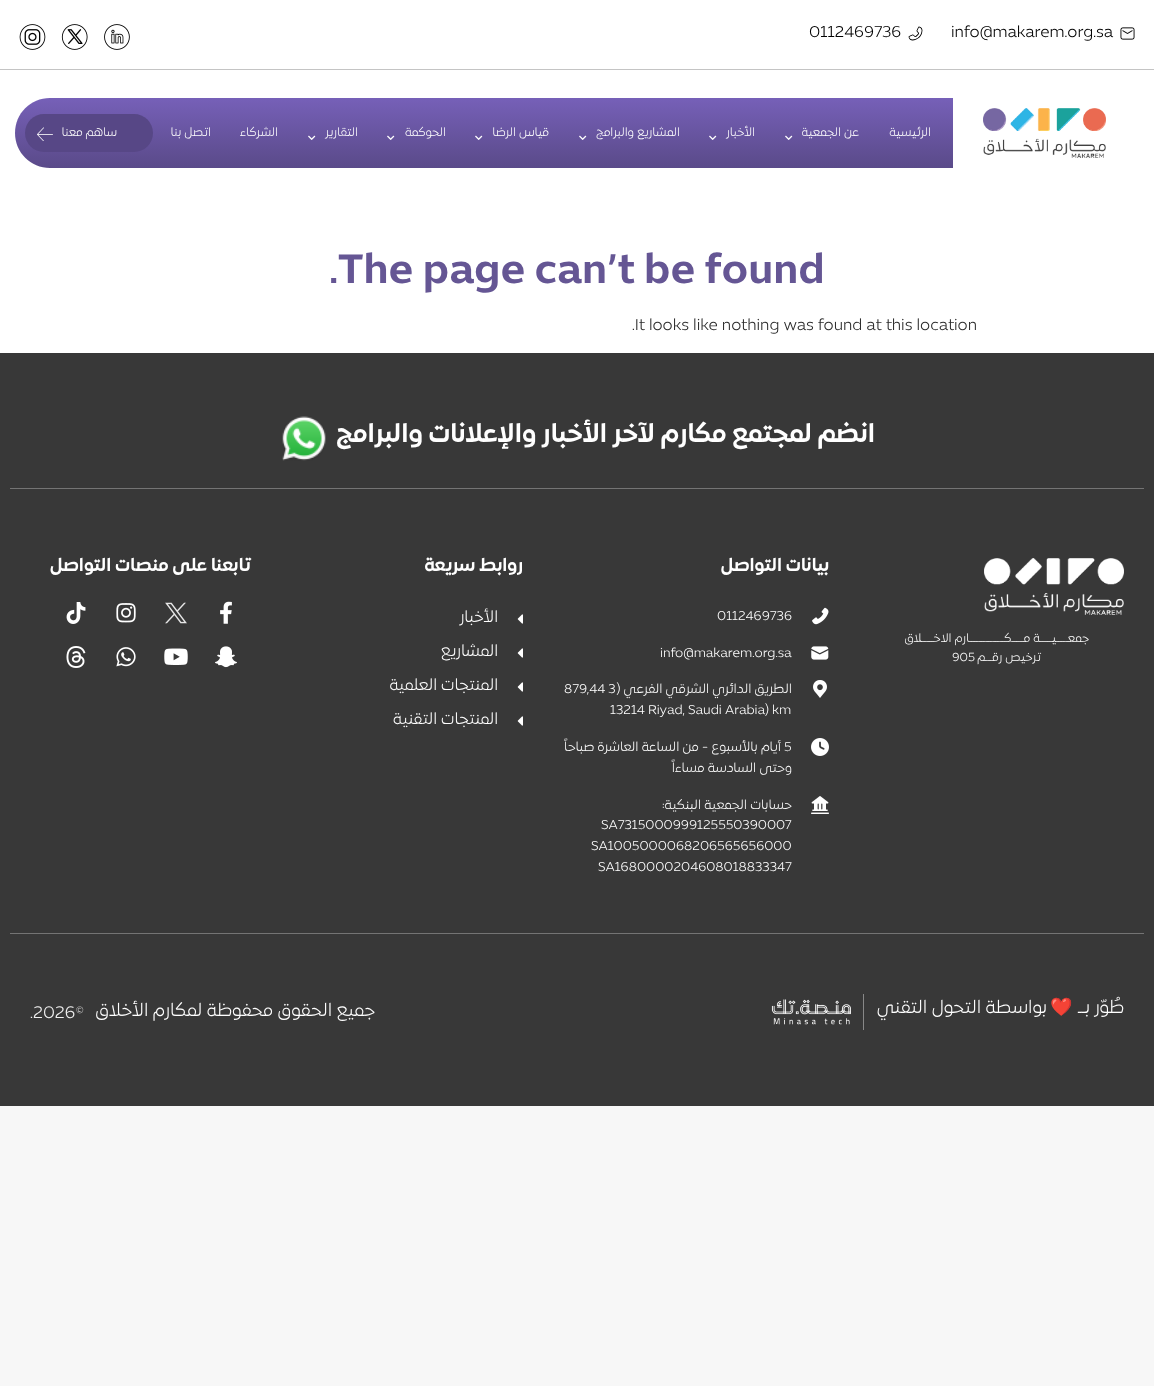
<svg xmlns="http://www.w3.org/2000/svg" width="1154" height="1386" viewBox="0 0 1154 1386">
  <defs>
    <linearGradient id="g1" gradientUnits="userSpaceOnUse" x1="484" y1="168" x2="484" y2="98"><stop offset="0" stop-color="rgb(90,74,137)"/><stop offset="1" stop-color="rgb(118,96,184)"/></linearGradient>
  </defs>
  <rect width="100%" height="100%" fill="rgb(247,247,247)"/>
  <rect x="0" y="0" width="1154" height="353" fill="rgb(255,255,255)"/>
  <rect x="0" y="69" width="1154" height="1" fill="rgb(196,196,196)"/>
  <image x="1120" y="27" width="15" height="13" href="pic1.png"/>
  <text x="951" y="37" font-family="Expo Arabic" font-size="16" font-weight="300" fill="rgb(0,0,0)">info@makarem.org.sa</text>
  <image x="908" y="26" width="15" height="15" href="pic2.png"/>
  <text x="809" y="37" font-family="Expo Arabic" font-size="16" font-weight="300" fill="rgb(0,0,0)">0112469736</text>
  <image x="104" y="24" width="26" height="26" href="pic3.png"/>
  <image x="61" y="24" width="27" height="26" href="pic4.png"/>
  <image x="19" y="24" width="27" height="26" href="pic5.png"/>
  <image x="983" y="108" width="123" height="50" href="pic6.png"/>
  <path d="M50 98H953V168H50C30.5 168 15 152.5 15 133C15 113.5 30.5 98 50 98Z" fill="url(#g1)"/>
  <g font-family="Expo Arabic" font-size="12" font-weight="300" direction="rtl" fill="rgb(255,255,255)">
    <text x="931" y="136">الرئيسية</text>
    <text x="859" y="136">عن الجمعية</text>
  </g>
  <image x="785" y="135" width="8" height="5" href="pic7.png"/>
  <text x="755" y="136" font-family="Expo Arabic" font-size="12" font-weight="300" direction="rtl" fill="rgb(255,255,255)">الأخبار</text>
  <image x="709" y="135" width="8" height="5" href="pic7.png"/>
  <text x="680" y="136" font-family="Expo Arabic" font-size="12" font-weight="300" direction="rtl" fill="rgb(255,255,255)">المشاريع والبرامج</text>
  <image x="579" y="135" width="8" height="5" href="pic7.png"/>
  <text x="549" y="136" font-family="Expo Arabic" font-size="12" font-weight="300" direction="rtl" fill="rgb(255,255,255)">قياس الرضا</text>
  <image x="475" y="135" width="8" height="5" href="pic7.png"/>
  <text x="446" y="136" font-family="Expo Arabic" font-size="12" font-weight="300" direction="rtl" fill="rgb(255,255,255)">الحوكمة</text>
  <image x="387" y="135" width="8" height="5" href="pic7.png"/>
  <text x="358" y="136" font-family="Expo Arabic" font-size="12" font-weight="300" direction="rtl" fill="rgb(255,255,255)">التقارير</text>
  <image x="308" y="135" width="8" height="5" href="pic7.png"/>
  <g font-family="Expo Arabic" font-size="12" font-weight="300" direction="rtl" fill="rgb(255,255,255)">
    <text x="278" y="136">الشركاء</text>
    <text x="211" y="136">اتصل بنا</text>
  </g>
  <rect x="25" y="114" width="128" height="38" rx="19" fill="rgb(87,71,134)"/>
  <text x="117" y="136" font-family="Expo Arabic" font-size="12" font-weight="300" direction="rtl" fill="rgb(255,255,255)">ساهم معنا</text>
  <image x="37" y="127" width="16" height="14" href="pic8.png"/>
  <text x="329" y="283" font-family="Expo Arabic" font-size="42" font-weight="600" fill="rgb(101,86,148)">.The page can’t be found</text>
  <text x="632" y="330" font-family="Expo Arabic" font-size="16" font-weight="300" fill="rgb(44,44,44)">.It looks like nothing was found at this location</text>
  <rect x="0" y="353" width="1154" height="753" fill="rgb(56,56,56)"/>
  <text x="875" y="442" font-family="Expo Arabic" font-size="26" font-weight="600" direction="rtl" fill="rgb(255,255,255)">انضم لمجتمع مكارم لآخر الأخبار والإعلانات والبرامج</text>
  <image x="282" y="416" width="44" height="45" href="pic9.png"/>
  <rect x="10" y="488" width="1134" height="1" fill="rgb(116,116,116)"/>
  <image x="984" y="558" width="140" height="57" href="pic10.png"/>
  <g font-family="Expo Arabic" font-size="12" font-weight="300" direction="rtl" fill="rgb(255,255,255)">
    <text x="1089" y="642">جمعـــــيـــــة مـــــكـــــــــــــــارم الاخـــــلاق</text>
    <text x="1041" y="661">ترخيص رقـــم</text>
  </g>
  <text x="952" y="661" font-family="Expo Arabic" font-size="12" font-weight="300" fill="rgb(255,255,255)">905</text>
  <text x="829" y="571" font-family="Expo Arabic" font-size="18" font-weight="600" direction="rtl" fill="rgb(255,255,255)">بيانات التواصل</text>
  <image x="812" y="607" width="17" height="18" href="pic11.png"/>
  <text x="717" y="620" font-family="Expo Arabic" font-size="13" font-weight="300" fill="rgb(255,255,255)">0112469736</text>
  <image x="811" y="646" width="18" height="14" href="pic12.png"/>
  <text x="660" y="657" font-family="Expo Arabic" font-size="13" font-weight="300" fill="rgb(255,255,255)">info@makarem.org.sa</text>
  <image x="813" y="680" width="14" height="18" href="pic13.png"/>
  <text x="792" y="693" font-family="Expo Arabic" font-size="13" font-weight="300" direction="rtl" fill="rgb(255,255,255)">الطريق الدائري الشرقي الفرعي (</text>
  <g font-family="Expo Arabic" font-size="13" font-weight="300" fill="rgb(255,255,255)">
    <text x="564" y="693">879,44 3</text>
    <text x="610" y="714">13214 Riyad, Saudi Arabia) km</text>
  </g>
  <image x="811" y="738" width="18" height="18" href="pic14.png"/>
  <text x="784" y="751" font-family="Expo Arabic" font-size="13" font-weight="300" fill="rgb(255,255,255)">5</text>
  <g font-family="Expo Arabic" font-size="13" font-weight="300" direction="rtl" fill="rgb(255,255,255)">
    <text x="781" y="751">أيام بالأسبوع - من الساعة العاشرة صباحاً</text>
    <text x="792" y="772">وحتى السادسة مساءاً</text>
  </g>
  <image x="811" y="796" width="18" height="18" href="pic15.png"/>
  <text x="792" y="809" font-family="Expo Arabic" font-size="13" font-weight="300" direction="rtl" fill="rgb(255,255,255)">حسابات الجمعية البنكية:</text>
  <g font-family="Expo Arabic" font-size="13" font-weight="300" fill="rgb(255,255,255)">
    <text x="601" y="829">SA7315000999125550390007</text>
    <text x="591" y="850">SA1005000068206565656000</text>
    <text x="598" y="871">SA1680000204608018833347</text>
  </g>
  <text x="523" y="571" font-family="Expo Arabic" font-size="18" font-weight="600" direction="rtl" fill="rgb(255,255,255)">روابط سريعة</text>
  <image x="517" y="614" width="6" height="10" href="pic16.png"/>
  <text x="498" y="622" font-family="Expo Arabic" font-size="16" font-weight="300" direction="rtl" fill="rgb(255,255,255)">الأخبار</text>
  <image x="517" y="648" width="6" height="10" href="pic16.png"/>
  <text x="498" y="656" font-family="Expo Arabic" font-size="16" font-weight="300" direction="rtl" fill="rgb(255,255,255)">المشاريع</text>
  <image x="517" y="682" width="6" height="10" href="pic16.png"/>
  <text x="498" y="690" font-family="Expo Arabic" font-size="16" font-weight="300" direction="rtl" fill="rgb(255,255,255)">المنتجات العلمية</text>
  <image x="517" y="716" width="6" height="10" href="pic16.png"/>
  <text x="498" y="724" font-family="Expo Arabic" font-size="16" font-weight="300" direction="rtl" fill="rgb(255,255,255)">المنتجات التقنية</text>
  <text x="251" y="571" font-family="Expo Arabic" font-size="18" font-weight="600" direction="rtl" fill="rgb(255,255,255)">تابعنا على منصات التواصل</text>
  <image x="220" y="601" width="12" height="23" href="pic17.png"/>
  <image x="165" y="602" width="22" height="22" href="pic18.png"/>
  <image x="116" y="603" width="20" height="20" href="pic19.png"/>
  <image x="66" y="602" width="20" height="22" href="pic20.png"/>
  <image x="215" y="646" width="22" height="22" href="pic21.png"/>
  <image x="164" y="648" width="24" height="17" href="pic22.png"/>
  <image x="116" y="647" width="20" height="20" href="pic23.png"/>
  <image x="66" y="646" width="20" height="22" href="pic24.png"/>
  <rect x="10" y="933" width="1134" height="1" fill="rgb(116,116,116)"/>
  <rect x="863" y="994" width="1" height="36" fill="rgb(136,136,136)"/>
  <text x="1124" y="1013" font-family="Expo Arabic" font-size="18" font-weight="300" direction="rtl" fill="rgb(255,255,255)">طُوّر بــ</text>
  <text x="1073" y="1013" font-family="Noto Color Emoji" font-size="18" direction="rtl" fill="rgb(255,255,255)">❤️</text>
  <text x="1047" y="1013" font-family="Expo Arabic" font-size="18" font-weight="300" direction="rtl" fill="rgb(255,255,255)">بواسطة التحول التقني</text>
  <image x="771" y="999" width="80" height="26" href="pic25.png"/>
  <text x="375" y="1016" font-family="Expo Arabic" font-size="18" font-weight="300" direction="rtl" fill="rgb(255,255,255)">جميع الحقوق محفوظة لمكارم الأخلاق</text>
  <text x="30" y="1018" font-family="Expo Arabic" font-size="17" font-weight="300" fill="rgb(240,240,240)">.2026©</text>
</svg>
